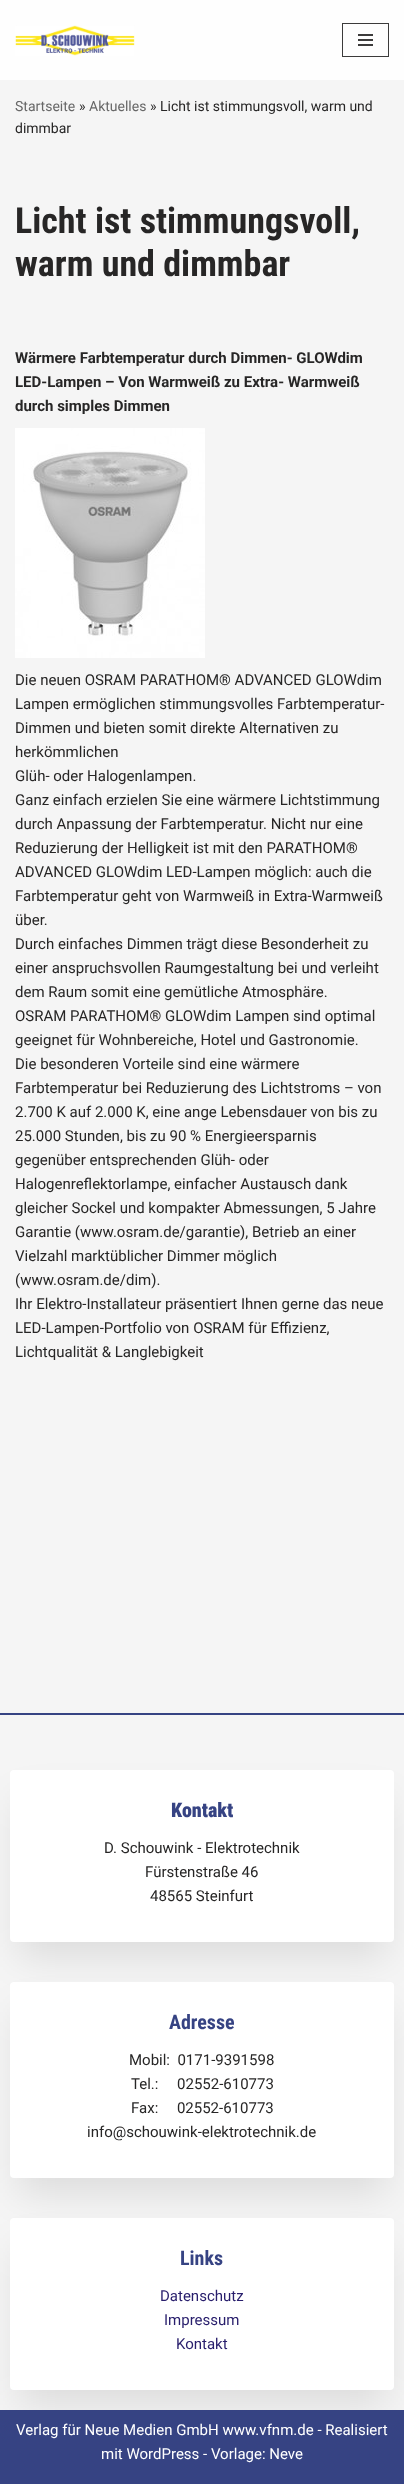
<svg xmlns="http://www.w3.org/2000/svg" width="404" height="2484" viewBox="0 0 404 2484">
  <rect width="100%" height="100%" fill="rgb(245,245,245)"/>
  <rect x="0" y="0" width="404" height="80" fill="rgb(254,254,254)"/>
  <image x="15" y="25" width="120" height="31" href="pic1.png"/>
  <rect x="342.5" y="23.5" width="46" height="33" fill="none" stroke="rgb(60,59,59)"/>
  <rect x="358" y="34" width="15" height="2" fill="rgb(60,59,59)"/>
  <rect x="358" y="39" width="15" height="2" fill="rgb(60,59,59)"/>
  <rect x="358" y="44" width="15" height="2" fill="rgb(60,59,59)"/>
  <text x="15" y="111" font-family="Roboto" font-size="14" fill="rgb(103,103,103)">Startseite</text>
  <text x="79" y="111" font-family="Roboto" font-size="14" fill="rgb(39,38,38)">»</text>
  <text x="89" y="111" font-family="Roboto" font-size="14" fill="rgb(103,103,103)">Aktuelles</text>
  <g font-family="Roboto" font-size="14" fill="rgb(39,38,38)">
    <text x="150" y="111">» Licht ist stimmungsvoll, warm und</text>
    <text x="15" y="133">dimmbar</text>
  </g>
  <g font-family="Roboto Condensed" font-size="36" font-weight="bold" fill="rgb(39,38,38)">
    <text>
      <tspan x="15" y="233">Licht ist stimmungsvoll,</tspan>
      <tspan x="15" y="276">warm und dimmbar</tspan>
    </text>
  </g>
  <g font-family="Roboto" font-size="15" font-weight="bold" fill="rgb(39,38,38)">
    <text>
      <tspan x="15" y="363">Wärmere Farbtemperatur durch Dimmen- GLOWdim</tspan>
      <tspan x="15" y="387">LED-Lampen – Von Warmweiß zu Extra- Warmweiß</tspan>
      <tspan x="15" y="411">durch simples Dimmen</tspan>
    </text>
  </g>
  <image x="15" y="428" width="190" height="230" href="pic2.png"/>
  <g font-family="Roboto" font-size="15" fill="rgb(39,38,38)">
    <text>
      <tspan x="15" y="685">Die neuen OSRAM PARATHOM® ADVANCED GLOWdim</tspan>
      <tspan x="15" y="709">Lampen ermöglichen stimmungsvolles Farbtemperatur-</tspan>
      <tspan x="15" y="733">Dimmen und bieten somit direkte Alternativen zu</tspan>
      <tspan x="15" y="757">herkömmlichen</tspan>
      <tspan x="15" y="781">Glüh- oder Halogenlampen.</tspan>
      <tspan x="15" y="805">Ganz einfach erzielen Sie eine wärmere Lichtstimmung</tspan>
      <tspan x="15" y="829">durch Anpassung der Farbtemperatur. Nicht nur eine</tspan>
      <tspan x="15" y="853">Reduzierung der Helligkeit ist mit den PARATHOM®</tspan>
      <tspan x="15" y="877">ADVANCED GLOWdim LED-Lampen möglich: auch die</tspan>
      <tspan x="15" y="901">Farbtemperatur geht von Warmweiß in Extra-Warmweiß</tspan>
      <tspan x="15" y="925">über.</tspan>
      <tspan x="15" y="949">Durch einfaches Dimmen trägt diese Besonderheit zu</tspan>
      <tspan x="15" y="973">einer anspruchsvollen Raumgestaltung bei und verleiht</tspan>
      <tspan x="15" y="997">dem Raum somit eine gemütliche Atmosphäre.</tspan>
      <tspan x="15" y="1021">OSRAM PARATHOM® GLOWdim Lampen sind optimal</tspan>
      <tspan x="15" y="1045">geeignet für Wohnbereiche, Hotel und Gastronomie.</tspan>
      <tspan x="15" y="1069">Die besonderen Vorteile sind eine wärmere</tspan>
      <tspan x="15" y="1093">Farbtemperatur bei Reduzierung des Lichtstroms – von</tspan>
      <tspan x="15" y="1117">2.700 K auf 2.000 K, eine ange Lebensdauer von bis zu</tspan>
      <tspan x="15" y="1141">25.000 Stunden, bis zu 90 % Energieersparnis</tspan>
      <tspan x="15" y="1165">gegenüber entsprechenden Glüh- oder</tspan>
      <tspan x="15" y="1189">Halogenreflektorlampe, einfacher Austausch dank</tspan>
      <tspan x="15" y="1213">gleicher Sockel und kompakter Abmessungen, 5 Jahre</tspan>
      <tspan x="15" y="1237">Garantie (www.osram.de/garantie), Betrieb an einer</tspan>
      <tspan x="15" y="1261">Vielzahl marktüblicher Dimmer möglich</tspan>
      <tspan x="15" y="1285">(www.osram.de/dim).</tspan>
      <tspan x="15" y="1309">Ihr Elektro-Installateur präsentiert Ihnen gerne das neue</tspan>
      <tspan x="15" y="1333">LED-Lampen-Portfolio von OSRAM für Effizienz,</tspan>
      <tspan x="15" y="1357">Lichtqualität &amp; Langlebigkeit</tspan>
    </text>
  </g>
  <rect x="0" y="1713" width="404" height="2" fill="rgb(54,67,131)"/>
  <rect x="18" y="1800" width="369" height="157" fill="rgba(0,0,0,0.1)" filter="blur(19px)"/>
  <rect x="10" y="1770" width="384" height="172" rx="4" fill="rgb(255,255,255)"/>
  <text x="171" y="1817" font-family="Roboto Condensed" font-size="20" font-weight="900" fill="rgb(54,67,131)">Kontakt</text>
  <g font-family="Roboto" font-size="15" fill="rgb(39,38,38)">
    <text x="104" y="1853">D. Schouwink - Elektrotechnik</text>
    <text x="145" y="1877">Fürstenstraße 46</text>
    <text x="150" y="1901">48565 Steinfurt</text>
  </g>
  <rect x="18" y="2012" width="369" height="181" fill="rgba(0,0,0,0.1)" filter="blur(19px)"/>
  <rect x="10" y="1982" width="384" height="196" rx="4" fill="rgb(255,255,255)"/>
  <text x="169" y="2029" font-family="Roboto Condensed" font-size="20" font-weight="bold" fill="rgb(54,67,131)">Adresse</text>
  <g font-family="Roboto" font-size="15" fill="rgb(39,38,38)">
    <text x="129" y="2065" xml:space="preserve">Mobil:  0171-9391598</text>
    <text xml:space="preserve"><tspan x="131" y="2089">Tel.:     02552-610773</tspan><tspan x="131" y="2113">Fax:     02552-610773</tspan></text>
    <text x="87" y="2137">info@schouwink-elektrotechnik.de</text>
  </g>
  <rect x="18" y="2248" width="369" height="157" fill="rgba(0,0,0,0.1)" filter="blur(19px)"/>
  <rect x="10" y="2218" width="384" height="172" rx="4" fill="rgb(255,255,255)"/>
  <text x="180" y="2265" font-family="Roboto Condensed" font-size="20" font-weight="bold" fill="rgb(54,67,131)">Links</text>
  <g font-family="Roboto" font-size="15" fill="rgb(40,30,108)">
    <text x="160" y="2301">Datenschutz</text>
    <text x="164" y="2325">Impressum</text>
    <text x="176" y="2349">Kontakt</text>
  </g>
  <rect x="0" y="2410" width="404" height="74" fill="rgb(54,67,131)"/>
  <g font-family="Roboto" font-size="15" fill="rgb(255,255,255)">
    <text x="16" y="2435">Verlag für Neue Medien GmbH www.vfnm.de - Realisiert</text>
    <text x="101" y="2459">mit WordPress - Vorlage: Neve</text>
  </g>
</svg>
